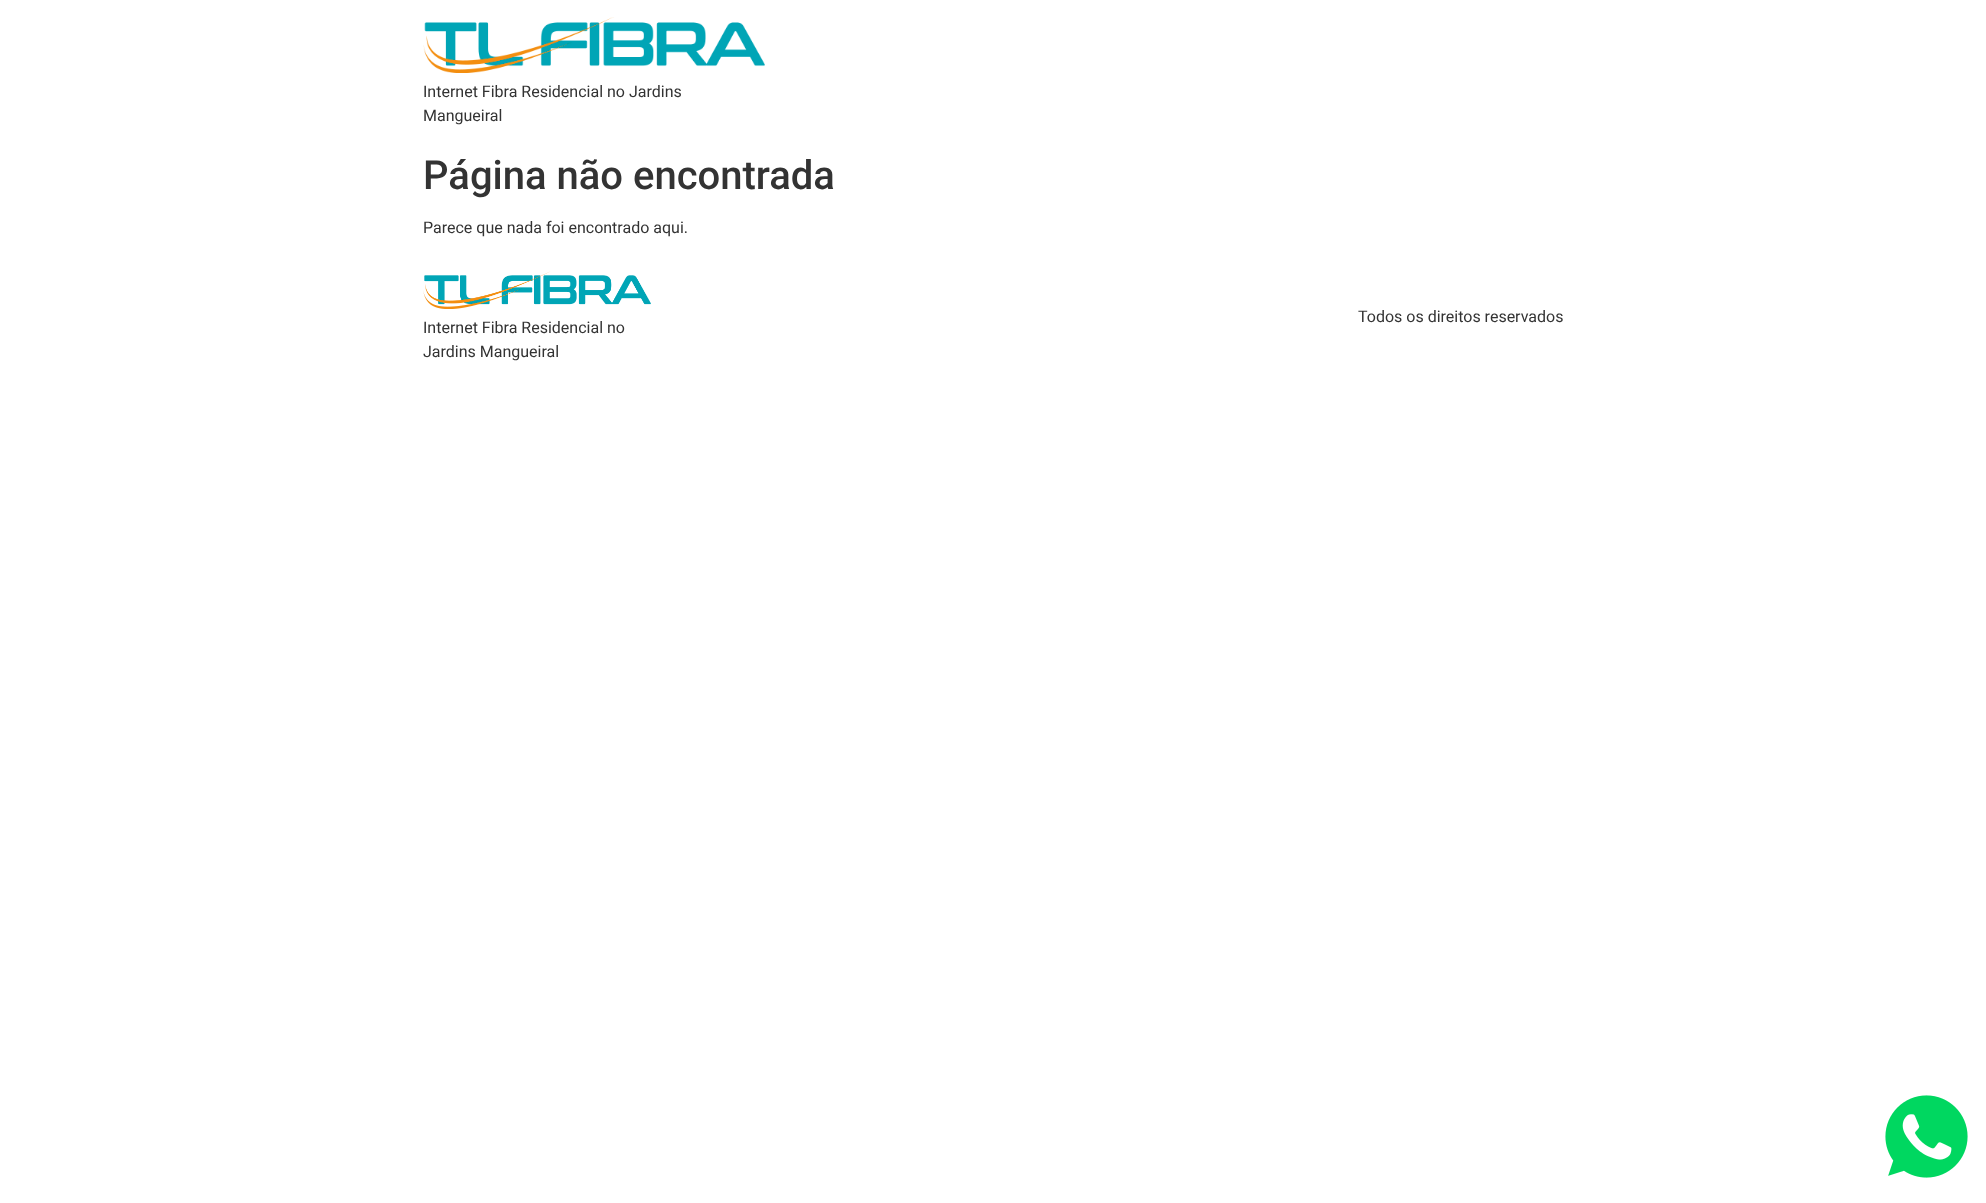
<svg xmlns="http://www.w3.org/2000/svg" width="1986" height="1203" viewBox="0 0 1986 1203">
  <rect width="100%" height="100%" fill="rgb(255,255,255)"/>
  <image x="423" y="17" width="342" height="56" href="pic1.png"/>
  <g font-family="Roboto" font-size="16" fill="rgb(51,51,51)">
    <text>
      <tspan x="423" y="97">Internet Fibra Residencial no Jardins</tspan>
      <tspan x="423" y="121">Mangueiral</tspan>
    </text>
  </g>
  <text x="423" y="189" font-family="Roboto" font-size="40" font-weight="500" fill="rgb(51,51,51)">Página não encontrada</text>
  <g font-family="Roboto" font-size="16" fill="rgb(51,51,51)">
    <text x="423" y="233">Parece que nada foi encontrado aqui.</text>
    <text x="1358" y="322">Todos os direitos reservados</text>
  </g>
  <image x="423" y="271" width="228" height="38" href="pic2.png"/>
  <g font-family="Roboto" font-size="16" fill="rgb(51,51,51)">
    <text>
      <tspan x="423" y="333">Internet Fibra Residencial no</tspan>
      <tspan x="423" y="357">Jardins Mangueiral</tspan>
    </text>
  </g>
  <image x="1885" y="1095" width="83" height="83" href="pic3.png"/>
</svg>
